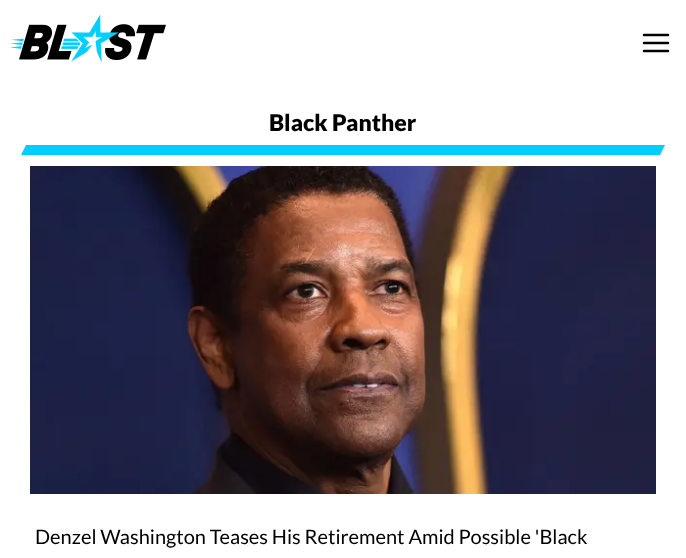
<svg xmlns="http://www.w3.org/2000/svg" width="686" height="558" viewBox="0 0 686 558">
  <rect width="100%" height="100%" fill="rgb(255,255,255)"/>
  <image x="10" y="14" width="156" height="49" href="pic1.png"/>
  <path d="M644 35H668M644 43H668M644 51H668" fill="none" stroke="rgb(0,0,0)" stroke-width="2.4" stroke-linecap="round"/>
  <text x="269" y="131" font-family="Lato" font-size="23" font-weight="900" fill="rgb(0,0,0)">Black Panther</text>
  <path d="M26 145H665L660 155H21Z" fill="rgb(0,206,255)"/>
  <image x="30" y="166" width="626" height="328" href="pic2.png"/>
  <text x="35" y="544" font-family="Lato" font-size="20" fill="rgb(0,0,0)">Denzel Washington Teases His Retirement Amid Possible 'Black</text>
</svg>
